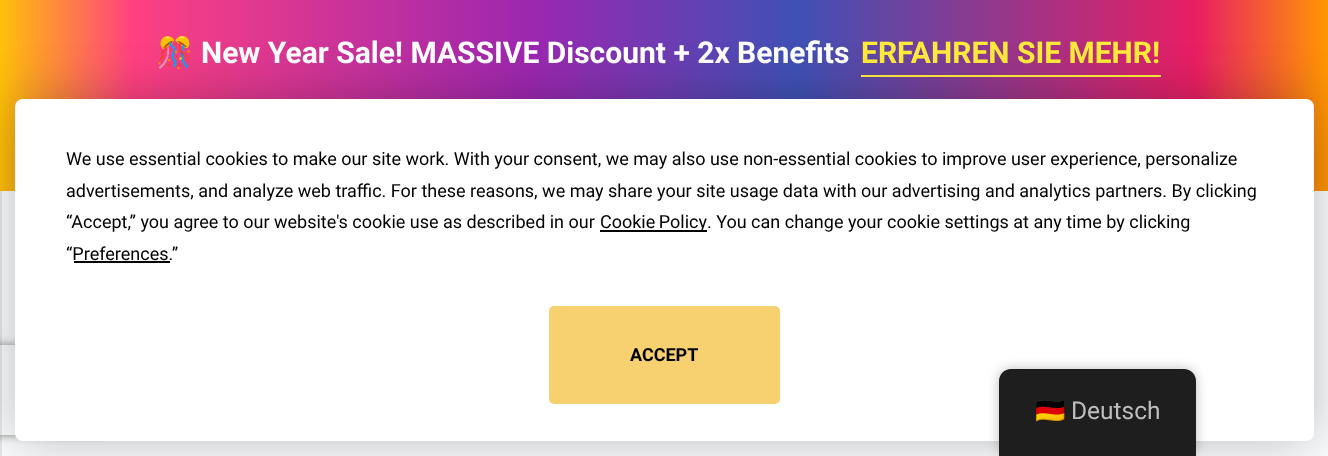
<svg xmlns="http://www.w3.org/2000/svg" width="1328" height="456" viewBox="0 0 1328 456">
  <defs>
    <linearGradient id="g1" gradientUnits="userSpaceOnUse" x1="0" y1="95" x2="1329" y2="95"><stop offset="0" stop-color="rgb(255,193,7)"/><stop offset="0.1" stop-color="rgb(255,64,129)"/><stop offset="0.4" stop-color="rgb(156,39,176)"/><stop offset="0.6" stop-color="rgb(63,81,181)"/><stop offset="0.9" stop-color="rgb(233,30,99)"/><stop offset="1" stop-color="rgb(255,152,0)"/></linearGradient>
    <clipPath id="clip1"><path d="M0 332H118V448H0ZM-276 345H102C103.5 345 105 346.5 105 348V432C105 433.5 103.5 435 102 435H-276C-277.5 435-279 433.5-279 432V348C-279 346.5-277.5 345-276 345Z" clip-rule="evenodd"/></clipPath>
  </defs>
  <rect width="100%" height="100%" fill="rgb(255,255,255)"/>
  <rect x="0" y="0" width="1328" height="191" fill="url(#g1)"/>
  <text x="156" y="63" font-family="Noto Color Emoji" font-size="30" font-weight="bold" fill="rgb(255,255,255)">🎊</text>
  <text x="201" y="63" font-family="Roboto" font-size="30" font-weight="bold" fill="rgb(255,255,255)">New Year Sale! MASSIVE Discount + 2x Benefits</text>
  <rect x="861" y="75" width="300" height="2" fill="rgb(255,235,59)"/>
  <text x="861" y="63" font-family="Roboto" font-size="30" font-weight="bold" fill="rgb(255,235,59)">ERFAHREN SIE MEHR!</text>
  <rect x="2" y="191" width="1326" height="265" fill="rgb(251,252,253)"/>
  <rect x="0" y="191" width="2" height="265" fill="rgb(231,231,231)"/>
  <rect x="15" y="99" width="1299" height="342" rx="8" fill="rgba(0,0,0,0.25)" filter="blur(26px)"/>
  <g clip-path="url(#clip1)">
    <rect x="-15" y="345" width="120" height="90" rx="3" fill="rgb(128,128,128)" filter="blur(4px)"/>
  </g>
  <rect x="15" y="99" width="1299" height="342" rx="8" fill="rgb(255,255,255)"/>
  <g font-family="Roboto" font-size="18" fill="rgb(0,0,0)">
    <text>
      <tspan x="66" y="165">We use essential cookies to make our site work. With your consent, we may also use non-essential cookies to improve user experience, personalize</tspan>
      <tspan x="66" y="197">advertisements, and analyze web traffic. For these reasons, we may share your site usage data with our advertising and analytics partners. By clicking</tspan>
      <tspan x="66" y="228">“Accept,” you agree to our website's cookie use as described in our</tspan>
    </text>
  </g>
  <rect x="600" y="230" width="107" height="2" fill="rgb(0,0,0)"/>
  <g font-family="Roboto" font-size="18" fill="rgb(0,0,0)">
    <text x="600" y="228" word-spacing="-1">Cookie Policy</text>
    <text x="707" y="228">. You can change your cookie settings at any time by clicking</text>
    <text x="66" y="260">“Preferences.”</text>
  </g>
  <rect x="74" y="261" width="96" height="2" fill="rgb(0,0,0)"/>
  <rect x="550" y="307" width="229" height="96" rx="4" fill="rgb(247,208,112)" stroke="rgb(247,208,112)" stroke-width="2"/>
  <text x="630" y="361" font-family="Roboto" font-size="18" font-weight="bold" fill="rgb(0,0,0)">ACCEPT</text>
  <rect x="999" y="369" width="197" height="87" rx="12" fill="rgba(0,0,0,0.25)" filter="blur(6px)"/>
  <path d="M1011 369H1184C1190.5 369 1196 374.5 1196 381V456H999V381C999 374.5 1004.5 369 1011 369Z" fill="rgb(30,30,30)"/>
  <text x="1035" y="419" font-family="Noto Color Emoji" font-size="24.5" fill="rgb(189,189,189)">🇩🇪</text>
  <text x="1071" y="419" font-family="Roboto" font-size="24.5" fill="rgb(189,189,189)">Deutsch</text>
</svg>
